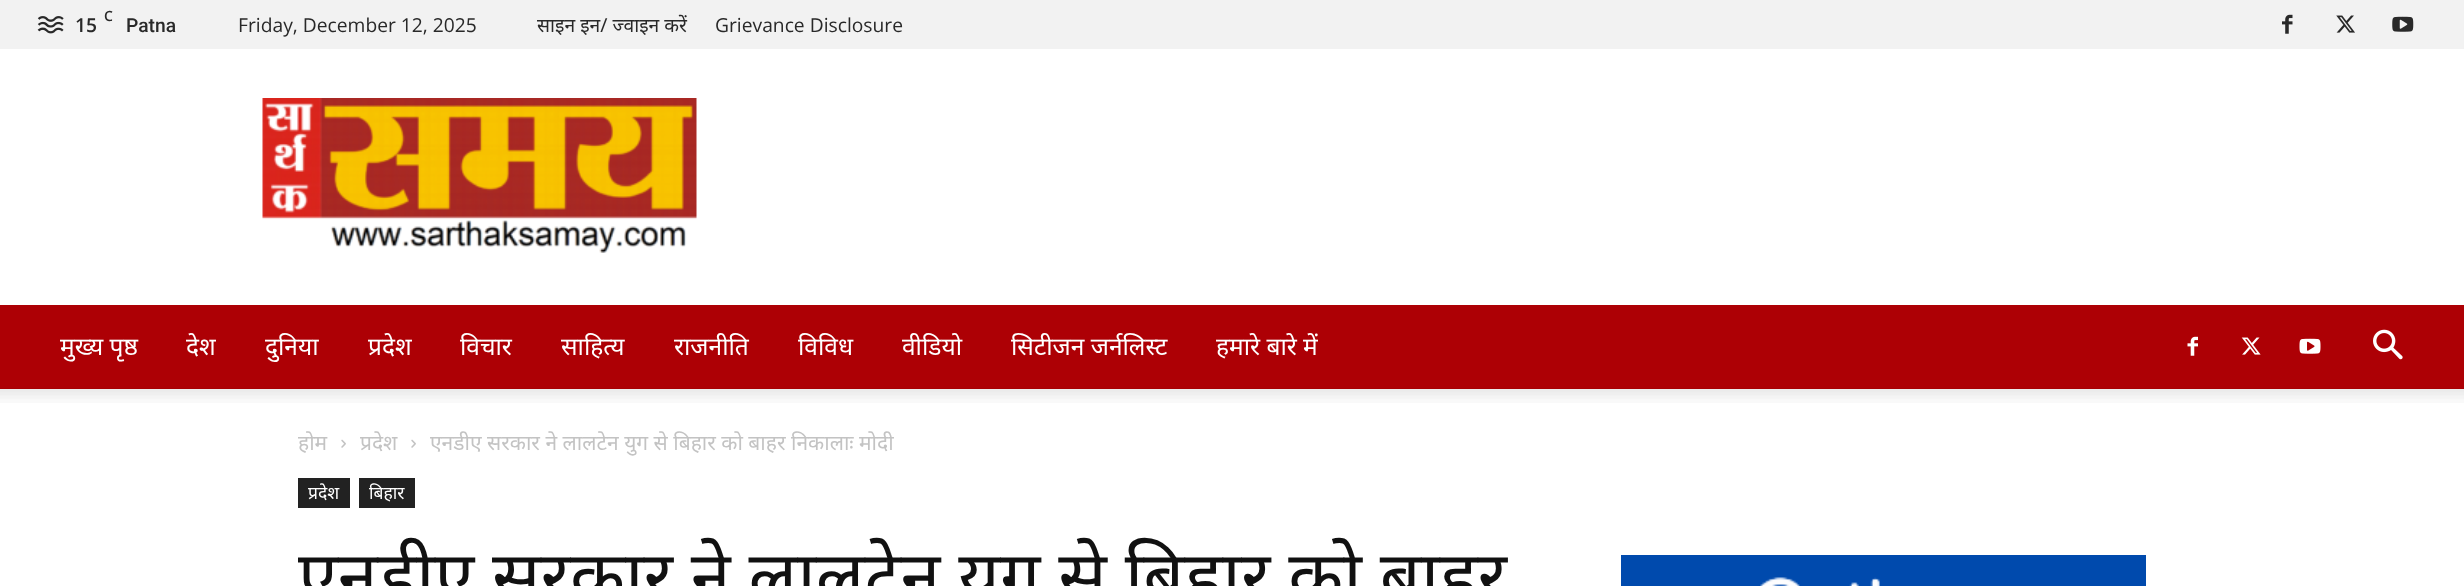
<svg xmlns="http://www.w3.org/2000/svg" width="2464" height="586" viewBox="0 0 2464 586">
  <rect width="100%" height="100%" fill="rgb(255,255,255)"/>
  <rect x="0" y="0" width="2464" height="49" fill="rgb(242,242,242)"/>
  <image x="37" y="16" width="27" height="18" href="pic1.png"/>
  <text x="104" y="21" font-family="Open Sans" font-size="14" font-weight="600" fill="rgb(41,41,41)">C</text>
  <text x="75" y="32" font-family="Open Sans" font-size="19.25" font-weight="600" fill="rgb(41,41,41)">15</text>
  <text x="126" y="32" font-family="Roboto" font-size="19.25" font-weight="500" fill="rgb(41,41,41)">Patna</text>
  <text x="238" y="32" font-family="Open Sans" font-size="19.25" fill="rgb(41,41,41)">Friday, December 12, 2025</text>
  <text x="537" y="32" font-family="Noto Sans" font-size="19.25" fill="rgb(41,41,41)">साइन इन/ ज्वाइन करें</text>
  <text x="715" y="32" font-family="Open Sans" font-size="19.25" fill="rgb(41,41,41)">Grievance Disclosure</text>
  <image x="2282" y="14" width="11" height="20" href="pic2.png"/>
  <image x="2336" y="15" width="19" height="18" href="pic3.png"/>
  <image x="2392" y="16" width="22" height="16" href="pic4.png"/>
  <image x="262" y="98" width="435" height="155" href="pic5.png"/>
  <rect x="0" y="305" width="2464" height="84" fill="rgb(173,0,5)"/>
  <g font-family="Noto Sans" font-size="24.5" fill="rgb(255,255,255)">
    <text x="60" y="355">मुख्य पृष्ठ</text>
    <text x="186" y="355">देश</text>
    <text x="265" y="355">दुनिया</text>
    <text x="368" y="355">प्रदेश</text>
    <text x="460" y="355">विचार</text>
    <text x="561" y="355">साहित्य</text>
    <text x="674" y="355">राजनीति</text>
    <text x="798" y="355">विविध</text>
    <text x="902" y="355">वीडियो</text>
    <text x="1011" y="355">सिटीजन जर्नलिस्ट</text>
    <text x="1216" y="355">हमारे बारे में</text>
  </g>
  <image x="2187" y="336" width="11" height="20" href="pic6.png"/>
  <image x="2241" y="337" width="20" height="18" href="pic7.png"/>
  <image x="2299" y="338" width="22" height="16" href="pic8.png"/>
  <image x="2373" y="329" width="30" height="31" href="pic9.png"/>
  <image x="0" y="388" width="2464" height="15" href="pic10.png"/>
  <text x="298" y="450" font-family="Noto Sans" font-size="21" fill="rgb(195,195,195)">होम</text>
  <image x="341" y="439" width="5" height="9" href="pic11.png"/>
  <text x="360" y="450" font-family="Noto Sans" font-size="21" fill="rgb(195,195,195)">प्रदेश</text>
  <image x="411" y="439" width="5" height="9" href="pic11.png"/>
  <text x="430" y="450" font-family="Noto Sans" font-size="21" fill="rgb(195,195,195)">एनडीए सरकार ने लालटेन युग से बिहार को बाहर निकालाः मोदी</text>
  <rect x="298" y="478" width="52" height="30" fill="rgb(34,34,34)"/>
  <text x="308" y="499" font-family="Noto Sans" font-size="17.5" fill="rgb(255,255,255)">प्रदेश</text>
  <rect x="359" y="478" width="56" height="30" fill="rgb(34,34,34)"/>
  <text x="369" y="499" font-family="Noto Sans" font-size="17.5" fill="rgb(255,255,255)">बिहार</text>
  <text x="298" y="602" word-spacing="-0.75" font-family="Noto Sans" font-size="71.75" fill="rgb(17,17,17)">एनडीए सरकार ने लालटेन युग से बिहार को बाहर</text>
  <image x="1621" y="555" width="525" height="31" href="pic12.png"/>
</svg>
